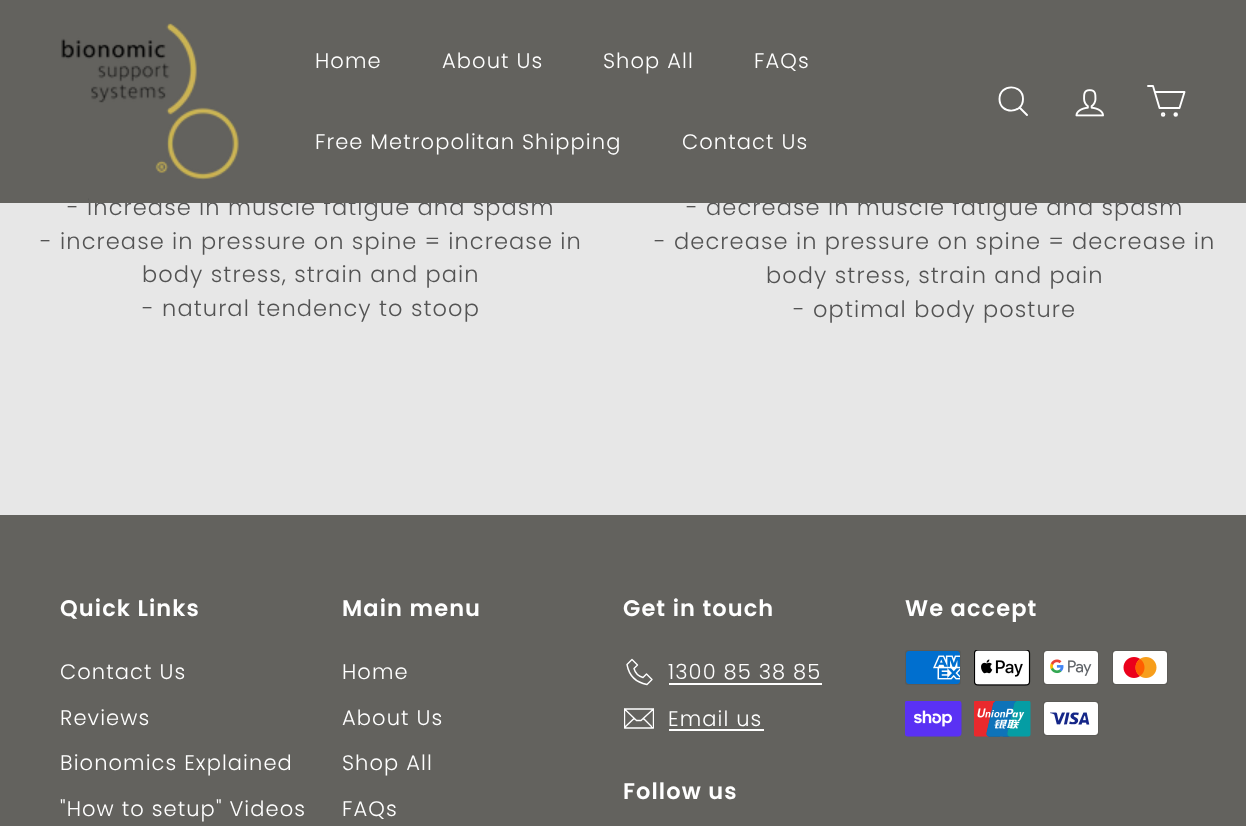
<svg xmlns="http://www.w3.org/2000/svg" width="1246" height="826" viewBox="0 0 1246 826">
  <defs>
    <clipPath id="clip1"><rect x="624" y="704" width="30" height="30"/></clipPath>
  </defs>
  <rect width="100%" height="100%" fill="rgb(99,98,94)"/>
  <rect x="0" y="203" width="1246" height="312" fill="rgb(231,231,231)"/>
  <g font-family="Poppins" font-size="22.5" font-weight="300" letter-spacing="1.1" fill="rgb(83,83,83)">
    <text x="67" y="215">- increase in muscle fatigue and spasm</text>
    <text x="686" y="215">- decrease in muscle fatigue and spasm</text>
  </g>
  <rect x="89" y="198" width="1089" height="5" fill="rgb(99,98,94)"/>
  <image x="61" y="23" width="178" height="157" href="pic1.png"/>
  <g font-family="Poppins" font-size="21" font-weight="300" letter-spacing="1.1" fill="rgb(255,255,255)">
    <text x="315" y="68">Home</text>
    <text x="442" y="68">About Us</text>
    <text x="603" y="68">Shop All</text>
    <text x="754" y="68">FAQs</text>
    <text x="315" y="149">Free Metropolitan Shipping</text>
    <text x="682" y="149">Contact Us</text>
  </g>
  <path d="M1023 99C1023 114.5 999.5 114.5 999.5 99C999.5 83.5 1023 83.5 1023 99ZM1027 115L1019.5 107.5" fill="none" stroke="rgb(255,255,255)" stroke-width="1.9" stroke-linecap="round" stroke-linejoin="round"/>
  <image x="1075" y="89" width="29" height="28" href="pic2.png"/>
  <path d="M1155 92H1184.5L1179.5 108H1159.5L1153 86H1148" fill="none" stroke="rgb(255,255,255)" stroke-width="1.9" stroke-linecap="round" stroke-linejoin="round"/>
  <circle cx="1163.1" cy="114.5" r="1.3" fill="none" stroke="rgb(255,255,255)" stroke-width="1.9"/>
  <circle cx="1175.7" cy="114.5" r="1.3" fill="rgb(255,255,255)" stroke="rgb(255,255,255)" stroke-width="1.9"/>
  <g font-family="Poppins" font-size="22.5" font-weight="300" letter-spacing="1.1" fill="rgb(83,83,83)">
    <text x="40" y="249">- increase in pressure on spine = increase in</text>
    <text>
      <tspan x="142" y="282">body stress, strain and pain</tspan>
      <tspan x="142" y="316">- natural tendency to stoop</tspan>
    </text>
    <text x="654" y="249">- decrease in pressure on spine = decrease in</text>
    <text x="766" y="283">body stress, strain and pain</text>
    <text x="793" y="317">- optimal body posture</text>
  </g>
  <text x="60" y="616" font-family="Poppins" font-size="22.5" font-weight="600" letter-spacing="1.1" fill="rgb(255,255,255)">Quick Links</text>
  <g font-family="Poppins" font-size="21" font-weight="300" letter-spacing="1.1" fill="rgb(255,255,255)">
    <text x="60" y="679">Contact Us</text>
    <text x="60" y="725">Reviews</text>
    <text x="60" y="770">Bionomics Explained</text>
    <text x="60" y="816">"How to setup" Videos</text>
  </g>
  <text x="342" y="616" font-family="Poppins" font-size="22.5" font-weight="600" letter-spacing="1.1" fill="rgb(255,255,255)">Main menu</text>
  <g font-family="Poppins" font-size="21" font-weight="300" letter-spacing="1.1" fill="rgb(255,255,255)">
    <text x="342" y="679">Home</text>
    <text x="342" y="725">About Us</text>
    <text x="342" y="770">Shop All</text>
    <text x="342" y="816">FAQs</text>
  </g>
  <text x="623" y="616" font-family="Poppins" font-size="22.5" font-weight="600" letter-spacing="1.1" fill="rgb(255,255,255)">Get in touch</text>
  <path d="M632 659.5L637.5 665L634 668.5C635 672.5 638 676 643 677.5L646.5 674L652 679.5L647 684.5C636 682.5 629 675.5 627 664.5Z" fill="none" stroke="rgb(255,255,255)" stroke-width="1.4" stroke-linecap="round" stroke-linejoin="round"/>
  <text x="668" y="679" font-family="Poppins" font-size="21" font-weight="300" letter-spacing="1.1" fill="rgb(255,255,255)">1300 85 38 85</text>
  <rect x="669" y="683" width="153" height="2" fill="rgb(255,255,255)"/>
  <g clip-path="url(#clip1)">
    <path d="M653.5 728H624.5V709H653.5ZM624.5 709L636.5 720.5H641L653.5 709M634 718.5L624.5 727.5M653 728L643.5 718.5" fill="none" stroke="rgb(255,255,255)" stroke-width="1.4" stroke-linecap="round" stroke-linejoin="round"/>
  </g>
  <text x="668" y="726" font-family="Poppins" font-size="21" font-weight="300" letter-spacing="1.1" fill="rgb(255,255,255)">Email us</text>
  <rect x="669" y="729" width="95" height="2" fill="rgb(255,255,255)"/>
  <g font-family="Poppins" font-size="22.5" font-weight="600" letter-spacing="1.1" fill="rgb(255,255,255)">
    <text x="623" y="799">Follow us</text>
    <text x="905" y="616">We accept</text>
  </g>
  <image x="905" y="650" width="56" height="35" href="pic3.png"/>
  <image x="974" y="650" width="57" height="36" href="pic4.png"/>
  <image x="1043" y="650" width="56" height="35" href="pic5.png"/>
  <image x="1112" y="650" width="56" height="35" href="pic6.png"/>
  <image x="905" y="701" width="57" height="36" href="pic7.png"/>
  <image x="974" y="701" width="57" height="36" href="pic8.png"/>
  <image x="1043" y="701" width="56" height="35" href="pic9.png"/>
</svg>
